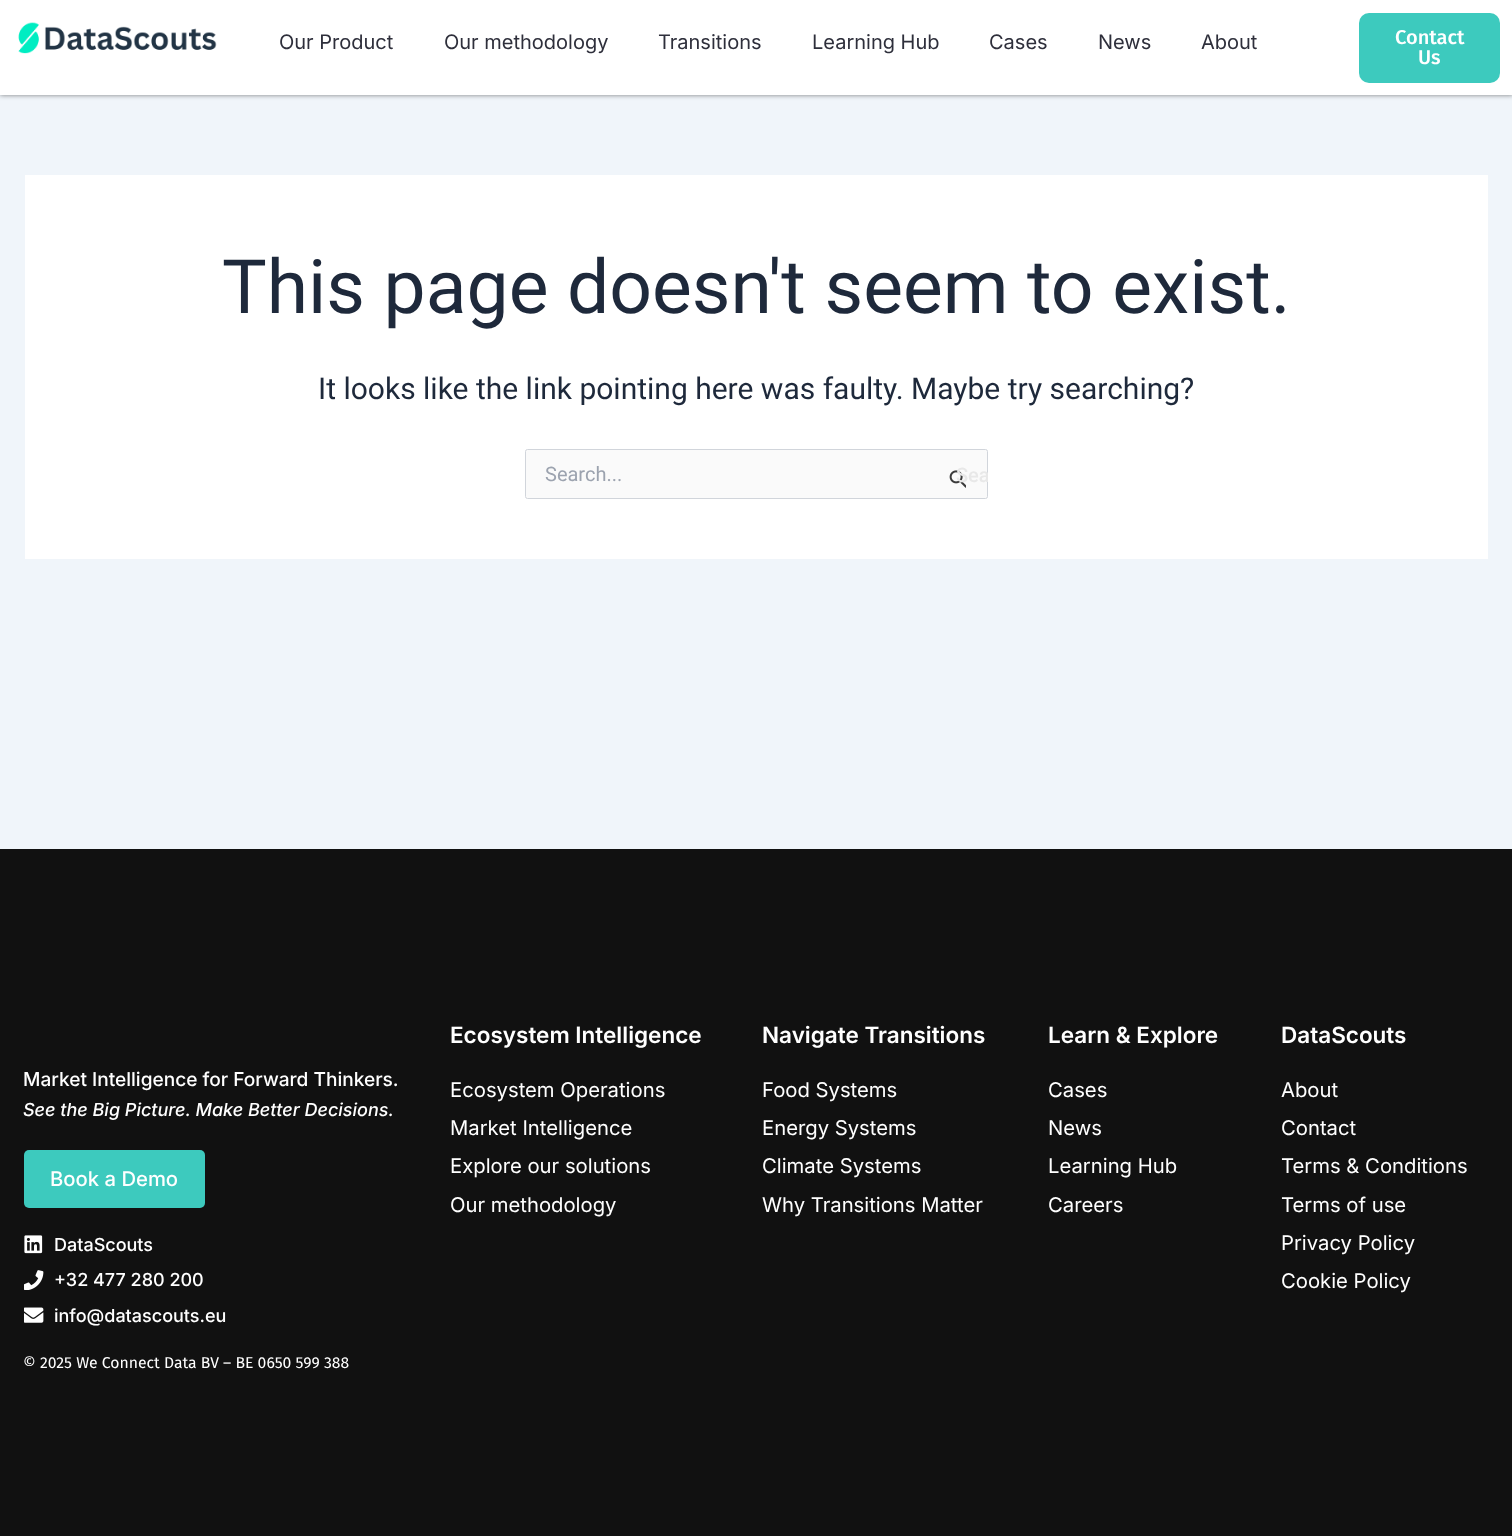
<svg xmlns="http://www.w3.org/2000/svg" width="1512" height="1536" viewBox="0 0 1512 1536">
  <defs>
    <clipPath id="clip1"><rect x="931" y="449" width="57" height="52" rx="2.5"/></clipPath>
  </defs>
  <rect width="100%" height="100%" fill="rgb(240,245,250)"/>
  <rect x="0" y="0" width="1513" height="95" fill="rgba(0,0,0,0.5)" filter="blur(2.5px)"/>
  <rect x="0" y="0" width="1512" height="95" fill="rgb(255,255,255)"/>
  <image x="18" y="22" width="199" height="32" href="pic1.png"/>
  <g font-family="Inter" font-size="20" fill="rgb(46,47,59)">
    <text x="279" y="49">Our Product</text>
    <text x="444" y="49">Our methodology</text>
    <text x="658" y="49">Transitions</text>
    <text x="812" y="49">Learning Hub</text>
    <text x="989" y="49">Cases</text>
    <text x="1098" y="49">News</text>
    <text x="1201" y="49">About</text>
  </g>
  <rect x="1359" y="13" width="141" height="70" rx="10" fill="rgb(61,202,190)"/>
  <g font-family="Fira Sans" font-size="20" font-weight="500" fill="rgb(255,255,255)">
    <text x="1395" y="44">Contact</text>
    <text x="1418" y="64">Us</text>
  </g>
  <rect x="25" y="175" width="1463" height="384" fill="rgb(255,255,255)"/>
  <text x="222" y="313" font-family="Roboto" font-size="75" fill="rgb(30,41,59)">This page doesn't seem to exist.</text>
  <text x="318" y="399" font-family="Roboto" font-size="30" fill="rgb(30,41,59)">It looks like the link pointing here was faulty. Maybe try searching?</text>
  <rect x="525.5" y="449.5" width="462" height="49" rx="2" fill="rgb(250,250,250)" stroke="rgb(209,213,219)"/>
  <text x="545" y="481" font-family="Roboto" font-size="20" fill="rgb(156,163,175)">Search...</text>
  <image x="949" y="470" width="17" height="18" href="pic2.png"/>
  <g clip-path="url(#clip1)">
    <text x="956" y="482" font-family="Roboto" font-size="20" font-weight="500" fill="rgb(232,232,232)">Sea</text>
  </g>
  <rect x="0" y="849" width="1512" height="687" fill="rgb(17,17,17)"/>
  <text x="23" y="1086" font-family="Inter" font-size="19.1" font-weight="500" fill="rgb(255,255,255)">Market Intelligence for Forward Thinkers.</text>
  <text x="23" y="1116" font-family="Inter" font-size="18" font-weight="500" font-style="italic" fill="rgb(255,255,255)">See the Big Picture. Make Better Decisions.</text>
  <rect x="24" y="1150" width="181" height="58" rx="5" fill="rgb(61,202,190)"/>
  <text x="50" y="1186" font-family="Inter" font-size="20.25" font-weight="500" fill="rgb(255,255,255)">Book a Demo</text>
  <image x="24" y="1235" width="19" height="19" href="pic3.png"/>
  <text x="54" y="1251" font-family="Inter" font-size="18" font-weight="500" fill="rgb(255,255,255)">DataScouts</text>
  <image x="24" y="1270" width="20" height="20" href="pic4.png"/>
  <text x="54" y="1286" font-family="Inter" font-size="18" font-weight="500" fill="rgb(255,255,255)">+32 477 280 200</text>
  <image x="24" y="1307" width="20" height="16" href="pic5.png"/>
  <text x="54" y="1322" font-family="Inter" font-size="18" font-weight="500" fill="rgb(255,255,255)">info@datascouts.eu</text>
  <text x="23" y="1368" font-family="Fira Sans" font-size="15.75" fill="rgb(255,255,255)">© 2025 We Connect Data BV – BE 0650 599 388</text>
  <text x="450" y="1043" font-family="Inter" font-size="22.5" font-weight="600" fill="rgb(255,255,255)">Ecosystem Intelligence</text>
  <g font-family="Inter" font-size="20.25" fill="rgb(255,255,255)">
    <text>
      <tspan x="450" y="1097">Ecosystem Operations</tspan>
      <tspan x="450" y="1135">Market Intelligence</tspan>
      <tspan x="450" y="1173">Explore our solutions</tspan>
      <tspan x="450" y="1212">Our methodology</tspan>
    </text>
  </g>
  <text x="762" y="1043" font-family="Inter" font-size="22.5" font-weight="600" fill="rgb(255,255,255)">Navigate Transitions</text>
  <g font-family="Inter" font-size="20.25" fill="rgb(255,255,255)">
    <text>
      <tspan x="762" y="1097">Food Systems</tspan>
      <tspan x="762" y="1135">Energy Systems</tspan>
      <tspan x="762" y="1173">Climate Systems</tspan>
      <tspan x="762" y="1212">Why Transitions Matter</tspan>
    </text>
  </g>
  <text x="1048" y="1043" font-family="Inter" font-size="22.5" font-weight="600" fill="rgb(255,255,255)">Learn &amp; Explore</text>
  <g font-family="Inter" font-size="20.25" fill="rgb(255,255,255)">
    <text>
      <tspan x="1048" y="1097">Cases</tspan>
      <tspan x="1048" y="1135">News</tspan>
      <tspan x="1048" y="1173">Learning Hub</tspan>
      <tspan x="1048" y="1212">Careers</tspan>
    </text>
  </g>
  <text x="1281" y="1043" font-family="Inter" font-size="22.5" font-weight="600" fill="rgb(255,255,255)">DataScouts</text>
  <g font-family="Inter" font-size="20.25" fill="rgb(255,255,255)">
    <text>
      <tspan x="1281" y="1097">About</tspan>
      <tspan x="1281" y="1135">Contact</tspan>
      <tspan x="1281" y="1173">Terms &amp; Conditions</tspan>
      <tspan x="1281" y="1212">Terms of use</tspan>
      <tspan x="1281" y="1250">Privacy Policy</tspan>
      <tspan x="1281" y="1288">Cookie Policy</tspan>
    </text>
  </g>
</svg>
